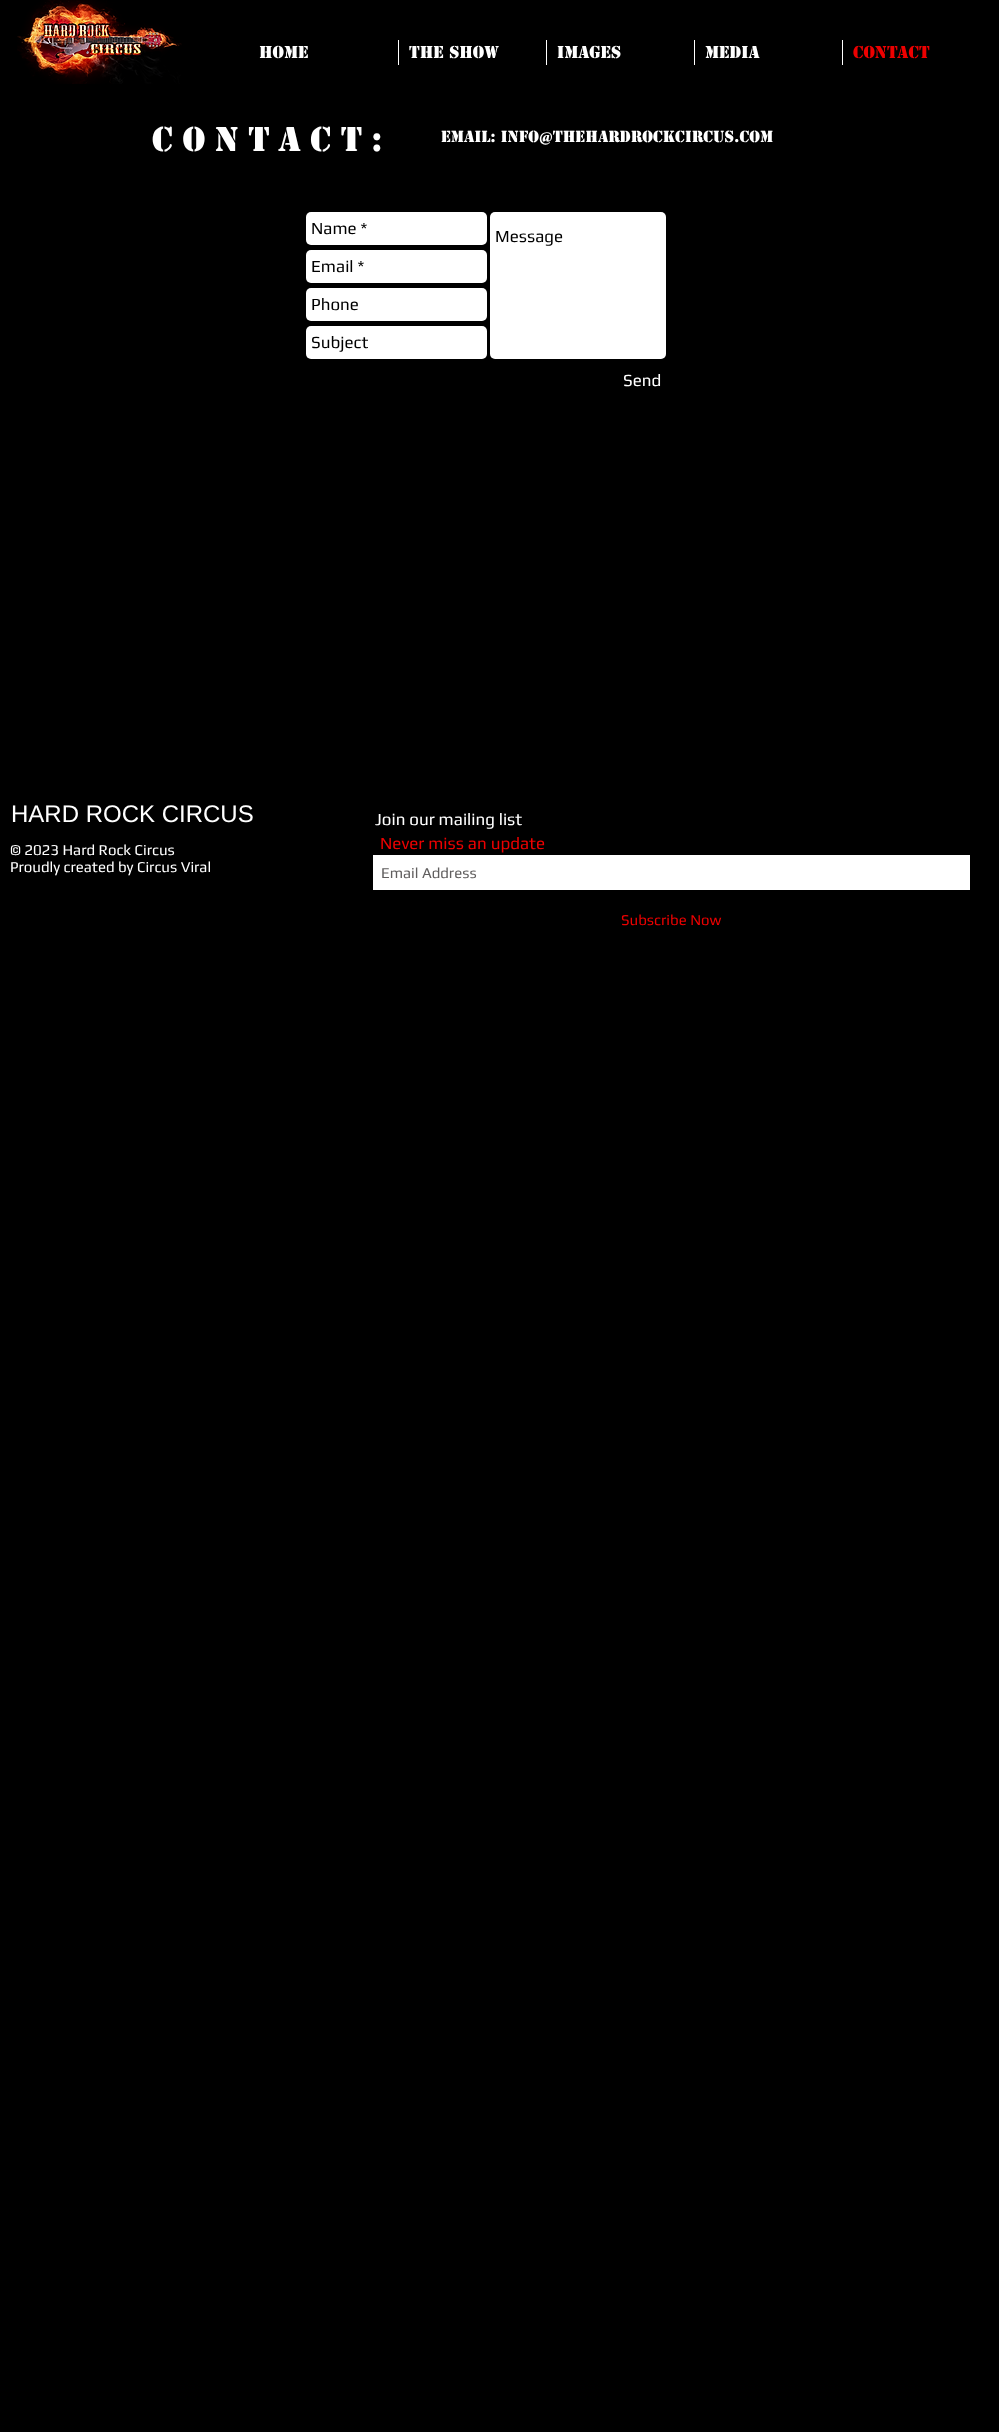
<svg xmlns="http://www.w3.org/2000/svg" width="999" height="2432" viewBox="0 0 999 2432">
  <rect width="100%" height="100%" fill="rgb(0,0,0)"/>
  <image x="17" y="0" width="165" height="84" href="pic1.png"/>
  <text x="259" y="58" font-family="'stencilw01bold'" font-size="16" font-weight="bold" fill="rgb(255,255,255)">HOME</text>
  <rect x="398" y="40" width="1" height="25" fill="rgb(255,255,255)"/>
  <text x="409" y="58" font-family="'stencilw01bold'" font-size="16" font-weight="bold" fill="rgb(255,255,255)">THE SHOW</text>
  <rect x="546" y="40" width="1" height="25" fill="rgb(255,255,255)"/>
  <text x="557" y="58" font-family="'stencilw01bold'" font-size="16" font-weight="bold" fill="rgb(255,255,255)">IMAGES</text>
  <rect x="694" y="40" width="1" height="25" fill="rgb(255,255,255)"/>
  <text x="705" y="58" font-family="'stencilw01bold'" font-size="16" font-weight="bold" fill="rgb(255,255,255)">MEDIA</text>
  <rect x="842" y="40" width="1" height="25" fill="rgb(255,255,255)"/>
  <text x="853" y="58" font-family="'stencilw01bold'" font-size="16" font-weight="bold" fill="rgb(237,0,0)">CONTACT</text>
  <text x="152" y="151" font-family="'stencilw01bold'" font-size="32" font-weight="bold" letter-spacing="9.5" fill="rgb(255,255,255)">CONTACT:</text>
  <text x="441" y="142" font-family="'stencilw01bold'" font-size="15" font-weight="bold" fill="rgb(255,255,255)">EMAIL: info@thehardrockcircus.com</text>
  <rect x="306" y="212" width="181" height="33" rx="5" fill="rgb(255,255,255)"/>
  <text x="311" y="234" font-family="Play" font-size="17" fill="rgb(0,0,0)">Name *</text>
  <rect x="490" y="212" width="176" height="147" rx="5" fill="rgb(255,255,255)"/>
  <text x="495" y="242" font-family="Play" font-size="17" fill="rgb(0,0,0)">Message</text>
  <rect x="306" y="250" width="181" height="33" rx="5" fill="rgb(255,255,255)"/>
  <text x="311" y="272" font-family="Play" font-size="17" fill="rgb(0,0,0)">Email *</text>
  <rect x="306" y="288" width="181" height="33" rx="5" fill="rgb(255,255,255)"/>
  <text x="311" y="310" font-family="Play" font-size="17" fill="rgb(0,0,0)">Phone</text>
  <rect x="306" y="326" width="181" height="33" rx="5" fill="rgb(255,255,255)"/>
  <text x="311" y="348" font-family="Play" font-size="17" fill="rgb(0,0,0)">Subject</text>
  <text x="623" y="386" font-family="Play" font-size="17" fill="rgb(255,255,255)">Send</text>
  <text x="11" y="822" font-family="Liberation Sans" font-size="24" fill="rgb(255,255,255)">HARD ROCK CIRCUS</text>
  <text x="375" y="825" font-family="Play" font-size="17" fill="rgb(255,255,255)">Join our mailing list</text>
  <text x="380" y="849" font-family="Play" font-size="17" fill="rgb(237,0,0)">Never miss an update</text>
  <rect x="373" y="855" width="597" height="35" fill="rgb(255,255,255)"/>
  <text x="381" y="878" font-family="Play" font-size="15" fill="rgb(96,94,94)">Email Address</text>
  <text x="621" y="925" font-family="Play" font-size="15" fill="rgb(237,0,0)">Subscribe Now</text>
  <g font-family="Play" font-size="15" fill="rgb(255,255,255)">
    <text>
      <tspan x="10" y="855">© 2023 Hard Rock Circus</tspan>
      <tspan x="10" y="872">Proudly created by Circus Viral</tspan>
    </text>
  </g>
</svg>
